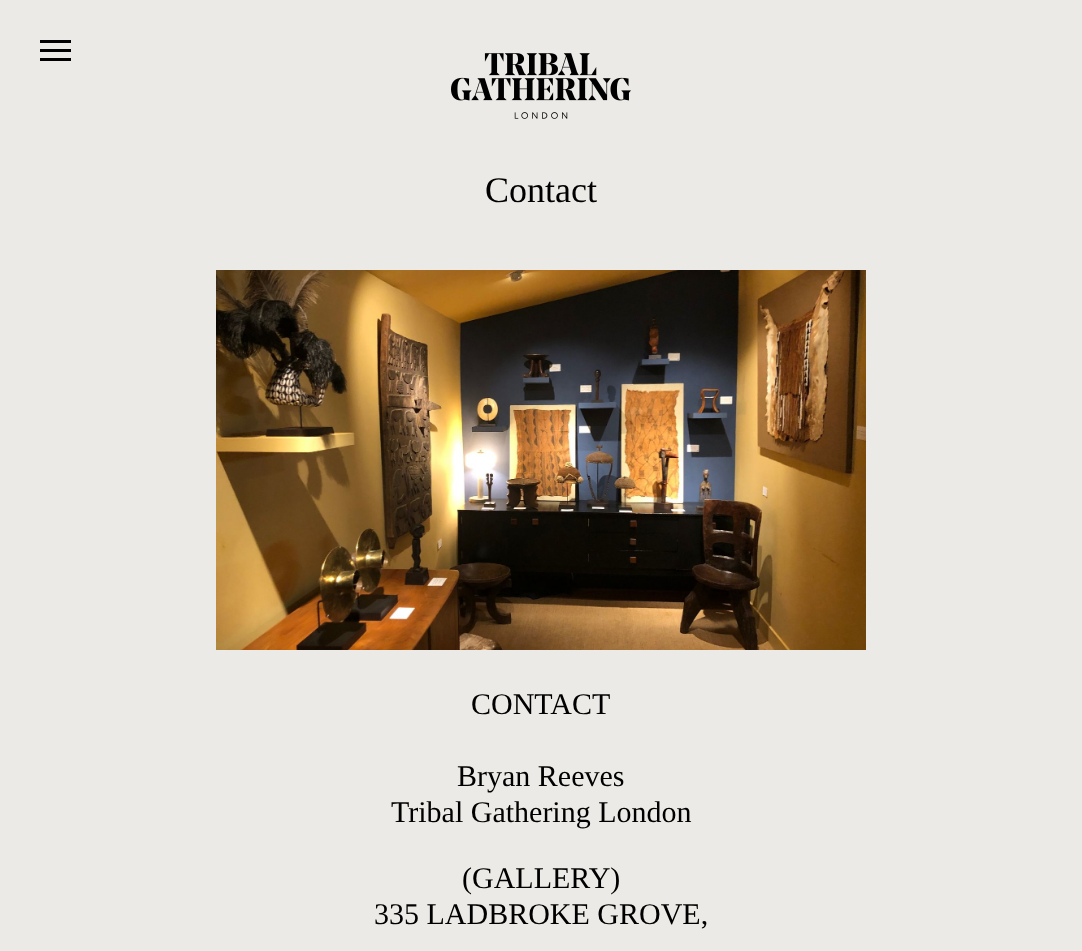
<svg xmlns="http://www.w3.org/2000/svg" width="1082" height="951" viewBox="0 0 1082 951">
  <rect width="100%" height="100%" fill="rgb(236,234,230)"/>
  <rect x="40" y="40" width="31" height="3" fill="rgb(0,0,0)"/>
  <rect x="40" y="49" width="31" height="3" fill="rgb(0,0,0)"/>
  <rect x="40" y="58" width="31" height="3" fill="rgb(0,0,0)"/>
  <image x="451" y="53" width="180" height="66" href="pic1.png"/>
  <text x="485" y="202" font-family="Liberation Serif" font-size="36" fill="rgb(0,0,0)">Contact</text>
  <image x="216" y="270" width="650" height="380" href="pic2.png"/>
  <g font-family="Liberation Serif" font-size="30" fill="rgb(0,0,0)">
    <text x="471" y="714">CONTACT</text>
    <text x="457" y="786">Bryan Reeves</text>
    <text x="391" y="822">Tribal Gathering London</text>
    <text x="462" y="888">(GALLERY)</text>
    <text x="374" y="924">335 LADBROKE GROVE,</text>
  </g>
</svg>
